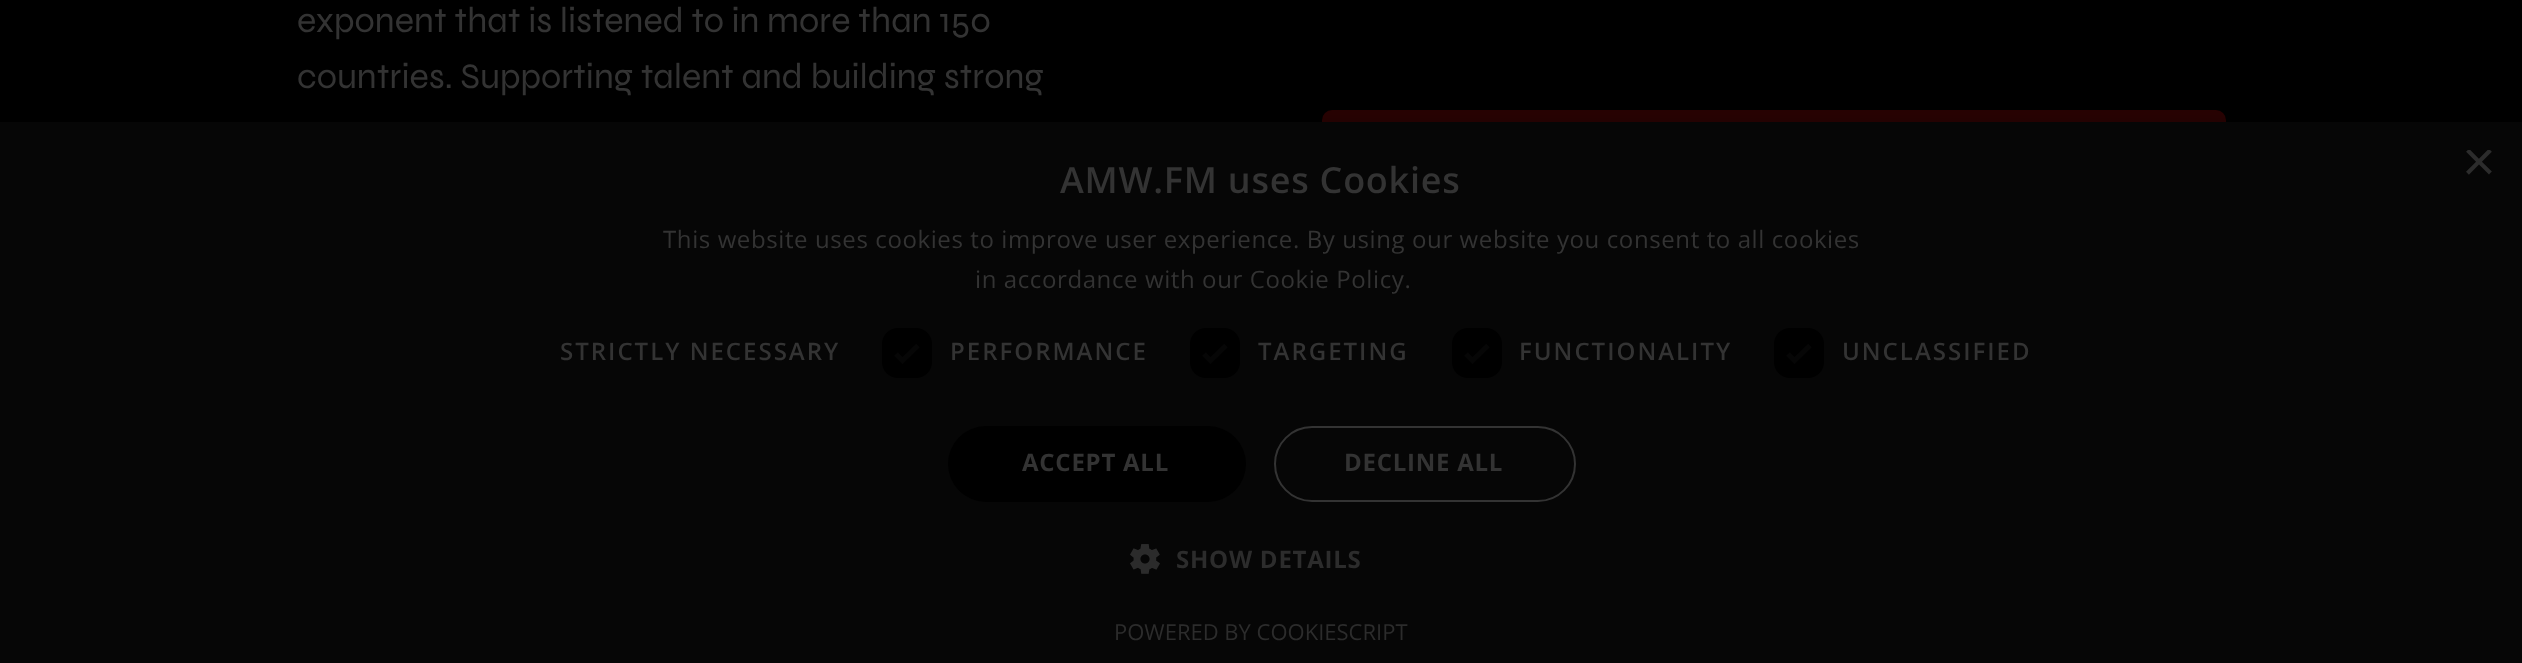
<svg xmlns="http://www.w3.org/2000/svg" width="2522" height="663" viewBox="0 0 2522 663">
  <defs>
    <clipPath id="clip1"><rect x="2462" y="150" width="30" height="30"/></clipPath>
  </defs>
  <rect width="100%" height="100%" fill="rgb(0,0,0)"/>
  <g font-family="Syne" font-size="36" fill="rgb(51,51,51)">
    <text>
      <tspan x="297" y="32">exponent that is listened to in more than 150</tspan>
      <tspan x="297" y="88">countries. Supporting talent and building strong</tspan>
    </text>
  </g>
  <rect x="1322" y="110" width="904" height="116" rx="10" fill="rgb(40,3,3)"/>
  <rect x="2" y="126" width="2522" height="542" fill="rgba(0,0,0,0.35)" filter="blur(8px)"/>
  <rect x="0" y="122" width="2522" height="541" fill="rgb(6,6,6)"/>
  <g clip-path="url(#clip1)">
    <text x="2462" y="181" font-family="Liberation Sans" font-size="58" fill="rgb(44,44,44)">×</text>
  </g>
  <text x="1060" y="193" font-family="Open Sans" font-size="36" font-weight="600" letter-spacing="0.75" fill="rgb(51,51,51)">AMW.FM uses Cookies</text>
  <g font-family="Open Sans" font-size="24" letter-spacing="0.6" fill="rgb(51,51,51)">
    <text x="663" y="248">This website uses cookies to improve user experience. By using our website you consent to all cookies</text>
    <text x="975" y="288">in accordance with our Cookie Policy.</text>
  </g>
  <text x="560" y="360" font-family="Open Sans" font-size="24" font-weight="600" letter-spacing="2" fill="rgb(51,51,51)">STRICTLY NECESSARY</text>
  <rect x="882" y="328" width="50" height="50" rx="16" fill="rgb(0,0,0)"/>
  <path d="M896 354L902.5 360.5L918 345.5" fill="none" stroke="rgb(6,6,6)" stroke-width="5.2"/>
  <text x="950" y="360" font-family="Open Sans" font-size="24" font-weight="600" letter-spacing="2" fill="rgb(51,51,51)">PERFORMANCE</text>
  <rect x="1190" y="328" width="50" height="50" rx="16" fill="rgb(0,0,0)"/>
  <path d="M1204 354L1210.5 360.5L1226 345.5" fill="none" stroke="rgb(6,6,6)" stroke-width="5.2"/>
  <text x="1258" y="360" font-family="Open Sans" font-size="24" font-weight="600" letter-spacing="2" fill="rgb(51,51,51)">TARGETING</text>
  <rect x="1452" y="328" width="50" height="50" rx="16" fill="rgb(0,0,0)"/>
  <path d="M1466 354L1472.5 360.5L1488 345.5" fill="none" stroke="rgb(6,6,6)" stroke-width="5.2"/>
  <text x="1519" y="360" font-family="Open Sans" font-size="24" font-weight="600" letter-spacing="2" fill="rgb(51,51,51)">FUNCTIONALITY</text>
  <rect x="1774" y="328" width="50" height="50" rx="16" fill="rgb(0,0,0)"/>
  <path d="M1788 354L1794.5 360.5L1810 345.5" fill="none" stroke="rgb(6,6,6)" stroke-width="5.2"/>
  <text x="1842" y="360" font-family="Open Sans" font-size="24" font-weight="600" letter-spacing="2" fill="rgb(51,51,51)">UNCLASSIFIED</text>
  <rect x="948" y="426" width="298" height="76" rx="38" fill="rgb(0,0,0)"/>
  <text x="1022" y="471" font-family="Open Sans" font-size="24" font-weight="bold" letter-spacing="0.75" fill="rgb(51,51,51)">ACCEPT ALL</text>
  <rect x="1275" y="427" width="300" height="74" rx="37" fill="none" stroke="rgb(51,51,51)" stroke-width="2"/>
  <text x="1344" y="471" font-family="Open Sans" font-size="24" font-weight="bold" letter-spacing="0.75" fill="rgb(51,51,51)">DECLINE ALL</text>
  <image x="1130" y="544" width="30" height="30" href="pic1.png"/>
  <text x="1176" y="568" font-family="Open Sans" font-size="24" font-weight="bold" letter-spacing="0.75" fill="rgb(44,44,44)">SHOW DETAILS</text>
  <text x="1114" y="640" font-family="Open Sans" font-size="22" fill="rgb(44,44,44)">POWERED BY COOKIESCRIPT</text>
</svg>
